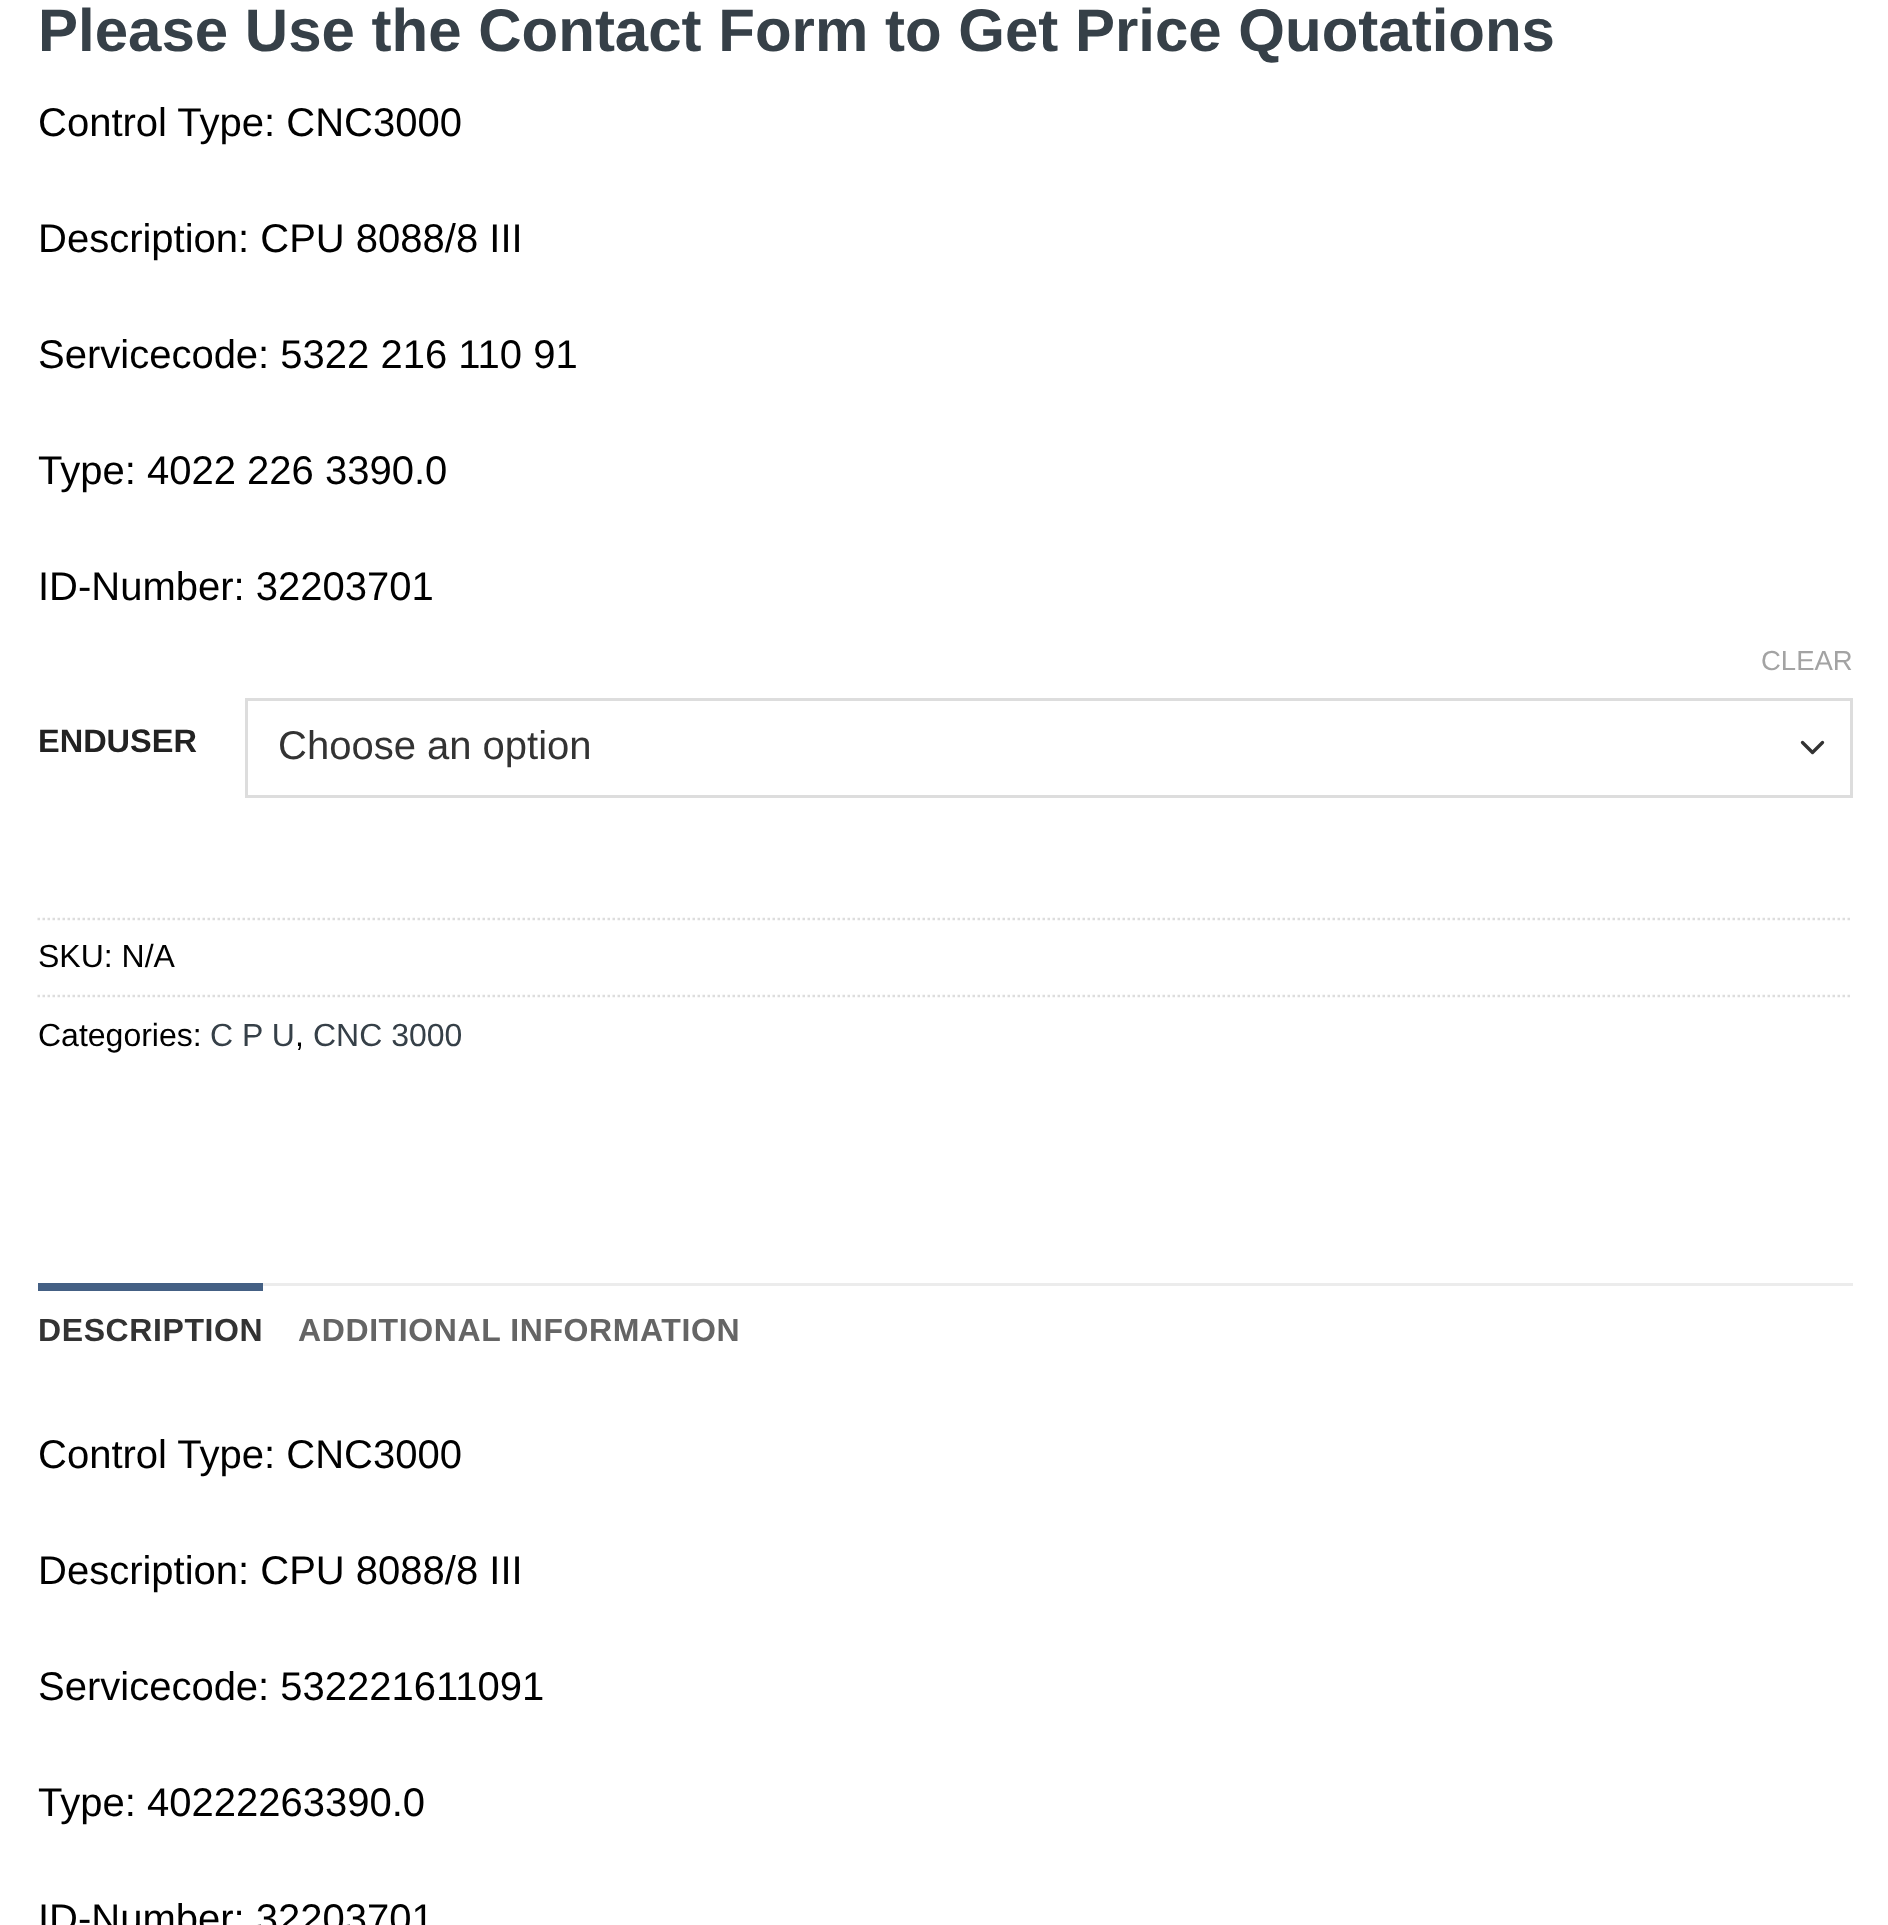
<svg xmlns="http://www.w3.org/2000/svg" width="1888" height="1925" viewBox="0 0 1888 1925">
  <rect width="100%" height="100%" fill="rgb(255,255,255)"/>
  <text x="38" y="51" font-family="Liberation Sans" font-size="60" font-weight="bold" fill="rgb(54,64,72)">Please Use the Contact Form to Get Price Quotations</text>
  <g font-family="Liberation Sans" font-size="40" fill="rgb(0,0,0)">
    <text x="38" y="136">Control Type: CNC3000</text>
    <text x="38" y="252">Description: CPU 8088/8 III</text>
    <text x="38" y="368">Servicecode: 5322 216 110 91</text>
    <text x="38" y="484">Type: 4022 226 3390.0</text>
    <text x="38" y="600">ID-Number: 32203701</text>
  </g>
  <text x="38" y="752" font-family="Liberation Sans" font-size="32.5" font-weight="bold" fill="rgb(34,34,34)">ENDUSER</text>
  <text x="1761" y="670" font-family="Liberation Sans" font-size="27.5" fill="rgb(163,163,163)">CLEAR</text>
  <path d="M1802.5 742.5L1812.5 752.5L1822.5 742.5" fill="none" stroke="rgb(51,51,51)" stroke-width="3.3" stroke-linecap="round" stroke-linejoin="round"/>
  <rect x="246.5" y="699.5" width="1605" height="97" fill="none" stroke="rgb(221,221,221)" stroke-width="3"/>
  <text x="278" y="759" font-family="Liberation Sans" font-size="40" fill="rgb(51,51,51)">Choose an option</text>
  <path d="M37.5 919H1852.5" fill="none" stroke="rgb(221,221,221)" stroke-width="2.5" stroke-dasharray="2.5 2.5"/>
  <text x="38" y="967" font-family="Liberation Sans" font-size="32" fill="rgb(0,0,0)">SKU: N/A</text>
  <path d="M37.5 996H1852.5" fill="none" stroke="rgb(221,221,221)" stroke-width="2.5" stroke-dasharray="2.5 2.5"/>
  <text x="38" y="1046" font-family="Liberation Sans" font-size="32" fill="rgb(0,0,0)">Categories:</text>
  <text x="210" y="1046" font-family="Liberation Sans" font-size="32" fill="rgb(54,64,72)">C P U</text>
  <text x="295" y="1046" font-family="Liberation Sans" font-size="32" fill="rgb(0,0,0)">,</text>
  <text x="313" y="1046" font-family="Liberation Sans" font-size="32" fill="rgb(54,64,72)">CNC 3000</text>
  <rect x="263" y="1283" width="1590" height="3" fill="rgb(236,236,236)"/>
  <rect x="38" y="1283" width="225" height="8" fill="rgb(68,96,132)"/>
  <text x="38" y="1341" font-family="Liberation Sans" font-size="32" font-weight="bold" letter-spacing="0.6" fill="rgb(51,51,51)">DESCRIPTION</text>
  <text x="298" y="1341" font-family="Liberation Sans" font-size="32" font-weight="bold" letter-spacing="0.6" fill="rgb(101,101,101)">ADDITIONAL INFORMATION</text>
  <g font-family="Liberation Sans" font-size="40" fill="rgb(0,0,0)">
    <text x="38" y="1468">Control Type: CNC3000</text>
    <text x="38" y="1584">Description: CPU 8088/8 III</text>
    <text x="38" y="1700">Servicecode: 532221611091</text>
    <text x="38" y="1816">Type: 40222263390.0</text>
    <text x="38" y="1932">ID-Number: 32203701</text>
  </g>
</svg>
